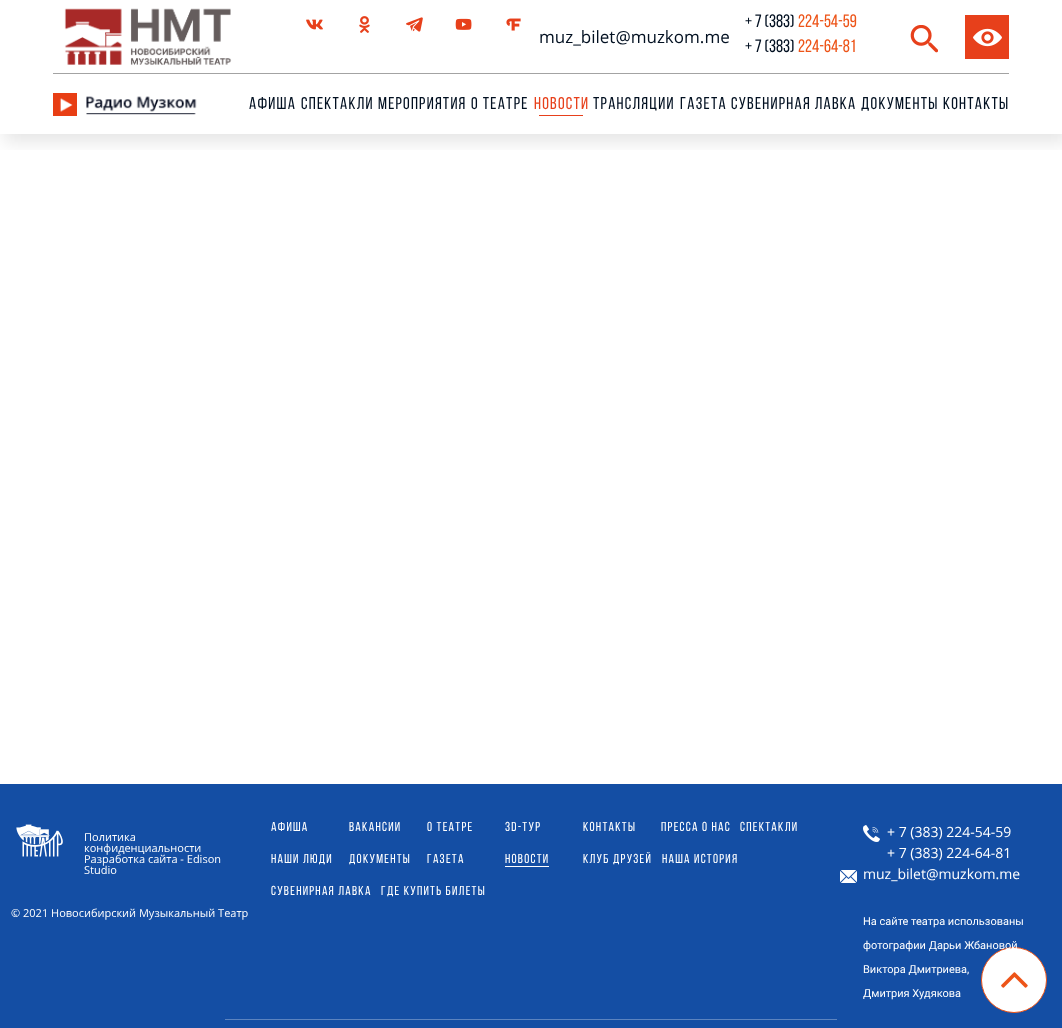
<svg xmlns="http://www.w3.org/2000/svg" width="1062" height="1028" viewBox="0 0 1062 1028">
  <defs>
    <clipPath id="clip1"><rect x="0" y="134" width="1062" height="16"/></clipPath>
  </defs>
  <rect width="100%" height="100%" fill="rgb(255,255,255)"/>
  <g clip-path="url(#clip1)">
    <rect x="4" y="6" width="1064" height="136" fill="rgba(0,0,0,0.1)" filter="blur(9px)"/>
  </g>
  <rect x="53" y="73" width="956" height="1" fill="rgb(163,163,163)"/>
  <image x="64" y="8" width="168" height="57" href="pic1.png"/>
  <image x="306" y="19" width="17" height="11" href="pic2.png"/>
  <image x="359" y="16" width="11" height="17" href="pic3.png"/>
  <image x="406" y="17" width="17" height="15" href="pic4.png"/>
  <image x="455" y="18" width="17" height="12" href="pic5.png"/>
  <image x="506" y="18" width="15" height="13" href="pic6.png"/>
  <text x="745" y="27" font-family="Bebas Neue" font-size="18" fill="rgb(2,16,33)">+ 7 (383)</text>
  <text x="798" y="27" font-family="Bebas Neue" font-size="18" fill="rgb(237,84,24)">224-54-59</text>
  <text x="745" y="52" font-family="Bebas Neue" font-size="18" fill="rgb(2,16,33)">+ 7 (383)</text>
  <text x="798" y="52" font-family="Bebas Neue" font-size="18" fill="rgb(237,84,24)">224-64-81</text>
  <text x="539" y="43" font-family="Open Sans" font-size="17" fill="rgb(2,16,33)">muz_bilet@muzkom.me</text>
  <image x="910" y="25" width="28" height="28" href="pic7.png"/>
  <rect x="965" y="15" width="44" height="44" fill="rgb(231,64,27)"/>
  <image x="973" y="28" width="29" height="19" href="pic8.png"/>
  <image x="53" y="93" width="24" height="23" href="pic9.png"/>
  <image x="86" y="96" width="111" height="19" href="pic10.png"/>
  <g font-family="Bebas Neue" font-size="17" letter-spacing="1.25" fill="rgb(2,16,33)">
    <text x="249" y="109">Афиша</text>
    <text x="301" y="109">Спектакли</text>
    <text x="378" y="109">Мероприятия</text>
    <text x="471" y="109">О театре</text>
  </g>
  <text x="534" y="109" font-family="Bebas Neue" font-size="17" letter-spacing="1.25" fill="rgb(231,64,27)">Новости</text>
  <rect x="539" y="115" width="44" height="1" fill="rgb(231,64,27)"/>
  <g font-family="Bebas Neue" font-size="17" letter-spacing="1.25" fill="rgb(2,16,33)">
    <text x="593" y="109">Трансляции</text>
    <text x="680" y="109">Газета</text>
    <text x="731" y="109">сувенирная лавка</text>
    <text x="861" y="109">Документы</text>
    <text x="943" y="109">Контакты</text>
  </g>
  <rect x="0" y="784" width="1062" height="244" fill="rgb(20,78,164)"/>
  <circle cx="1014" cy="980" r="32.5" fill="rgb(255,255,255)" stroke="rgb(237,84,24)"/>
  <image x="1001" y="972" width="27" height="16" href="pic11.png"/>
  <image x="16" y="824" width="47" height="33" href="pic12.png"/>
  <g font-family="Open Sans" font-size="11" fill="rgb(255,255,255)">
    <text>
      <tspan x="84" y="841">Политика</tspan>
      <tspan x="84" y="852">конфиденциальности</tspan>
      <tspan x="84" y="863">Разработка сайта - Edison</tspan>
      <tspan x="84" y="874">Studio</tspan>
    </text>
    <text x="11" y="917">© 2021 Новосибирский Музыкальный Театр</text>
  </g>
  <g font-family="Bebas Neue" font-size="13" letter-spacing="1.25" fill="rgb(255,255,255)">
    <text x="271" y="831">Афиша</text>
    <text x="349" y="831">Вакансии</text>
    <text x="427" y="831">О театре</text>
    <text x="505" y="831">3D-тур</text>
    <text x="583" y="831">Контакты</text>
    <text x="661" y="831">Пресса о нас</text>
    <text x="740" y="831">Спектакли</text>
    <text x="271" y="863">Наши люди</text>
    <text x="349" y="863">Документы</text>
    <text x="427" y="863">Газета</text>
  </g>
  <rect x="505" y="866" width="44" height="1" fill="rgb(255,255,255)"/>
  <g font-family="Bebas Neue" font-size="13" letter-spacing="1.25" fill="rgb(255,255,255)">
    <text x="505" y="863">Новости</text>
    <text x="583" y="863">Клуб друзей</text>
    <text x="662" y="863">Наша история</text>
    <text x="271" y="895">сувенирная лавка</text>
    <text x="381" y="895">Где купить билеты</text>
  </g>
  <image x="863" y="825" width="17" height="17" href="pic13.png"/>
  <g font-family="Open Sans" font-size="14" fill="rgb(255,255,255)">
    <text>
      <tspan x="887" y="837">+ 7 (383) 224-54-59</tspan>
      <tspan x="887" y="858">+ 7 (383) 224-64-81</tspan>
    </text>
  </g>
  <image x="840" y="870" width="17" height="13" href="pic14.png"/>
  <text x="863" y="879" font-family="Open Sans" font-size="14" fill="rgb(255,255,255)">muz_bilet@muzkom.me</text>
  <g font-family="Roboto" font-size="11" fill="rgb(255,255,255)">
    <text x="863" y="925">На сайте театра использованы</text>
    <text x="863" y="949">фотографии Дарьи Жбановой</text>
    <text x="863" y="973">Виктора Дмитриева,</text>
    <text x="863" y="997">Дмитрия Худякова</text>
  </g>
  <rect x="225" y="1019" width="612" height="1" fill="rgb(91,131,191)"/>
</svg>
